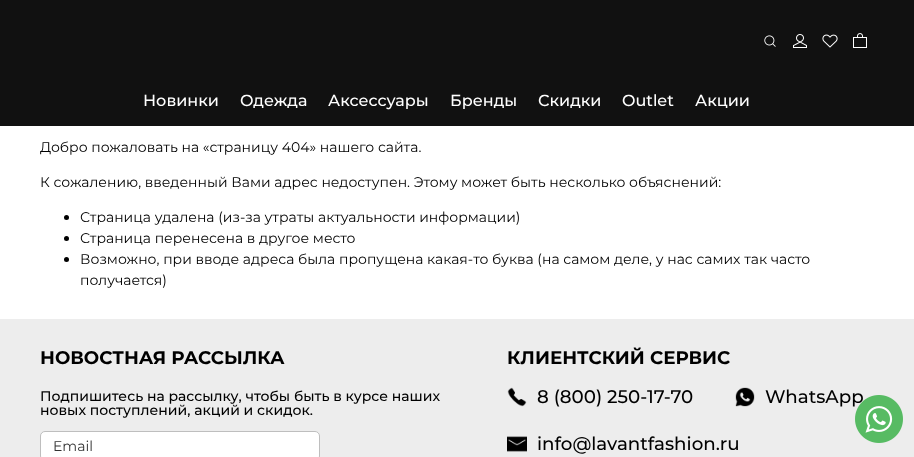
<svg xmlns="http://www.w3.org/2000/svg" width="914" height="457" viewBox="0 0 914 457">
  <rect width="100%" height="100%" fill="rgb(255,255,255)"/>
  <rect x="0" y="0" width="914" height="126" fill="rgb(17,17,17)"/>
  <image x="764" y="35" width="12" height="12" href="pic1.png"/>
  <image x="793" y="34" width="14" height="14" href="pic2.png"/>
  <image x="822" y="34" width="16" height="14" href="pic3.png"/>
  <image x="853" y="33" width="14" height="15" href="pic4.png"/>
  <g font-family="Montserrat" font-size="16" font-weight="500" fill="rgb(255,255,255)">
    <text x="143" y="106">Новинки</text>
    <text x="240" y="106">Одежда</text>
    <text x="328" y="106">Аксессуары</text>
    <text x="450" y="106">Бренды</text>
    <text x="538" y="106">Скидки</text>
    <text x="622" y="106">Outlet</text>
    <text x="695" y="106">Акции</text>
  </g>
  <g font-family="Montserrat" font-size="14" fill="rgb(0,0,0)">
    <text x="40" y="152">Добро пожаловать на «страницу 404» нашего сайта.</text>
    <text x="40" y="187">К сожалению, введенный Вами адрес недоступен. Этому может быть несколько объяснений:</text>
  </g>
  <circle cx="66.5" cy="217.5" r="2.5" fill="rgb(0,0,0)"/>
  <text x="80" y="222" font-family="Montserrat" font-size="14" fill="rgb(0,0,0)">Страница удалена (из-за утраты актуальности информации)</text>
  <circle cx="66.5" cy="238.5" r="2.5" fill="rgb(0,0,0)"/>
  <text x="80" y="243" font-family="Montserrat" font-size="14" fill="rgb(0,0,0)">Страница перенесена в другое место</text>
  <circle cx="66.5" cy="259.5" r="2.5" fill="rgb(0,0,0)"/>
  <g font-family="Montserrat" font-size="14" fill="rgb(0,0,0)">
    <text>
      <tspan x="80" y="264">Возможно, при вводе адреса была пропущена какая-то буква (на самом деле, у нас самих так часто</tspan>
      <tspan x="80" y="285">получается)</tspan>
    </text>
  </g>
  <rect x="0" y="319" width="914" height="138" fill="rgb(237,237,237)"/>
  <text x="40" y="364" font-family="Montserrat" font-size="18.25" font-weight="bold" fill="rgb(0,0,0)">НОВОСТНАЯ РАССЫЛКА</text>
  <g font-family="Montserrat" font-size="14" font-weight="500" fill="rgb(0,0,0)">
    <text>
      <tspan x="40" y="401">Подпишитесь на рассылку, чтобы быть в курсе наших</tspan>
      <tspan x="40" y="415">новых поступлений, акций и скидок.</tspan>
    </text>
  </g>
  <rect x="40.5" y="431.5" width="279" height="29" rx="4.5" fill="rgb(255,255,255)" stroke="rgb(190,190,190)"/>
  <text x="53" y="451" font-family="Montserrat" font-size="14" fill="rgb(51,51,51)">Email</text>
  <text x="507" y="364" font-family="Montserrat" font-size="18.25" font-weight="bold" fill="rgb(0,0,0)">КЛИЕНТСКИЙ СЕРВИС</text>
  <image x="507" y="387" width="20" height="20" href="pic5.png"/>
  <text x="537" y="403" font-family="Montserrat" font-size="18.25" font-weight="500" fill="rgb(0,0,0)">8 (800) 250-17-70</text>
  <image x="735" y="387" width="20" height="20" href="pic6.png"/>
  <text x="765" y="403" font-family="Montserrat" font-size="18.25" font-weight="500" fill="rgb(0,0,0)">WhatsApp</text>
  <image x="507" y="436" width="20" height="16" href="pic7.png"/>
  <text x="537" y="450" font-family="Montserrat" font-size="18.25" font-weight="500" fill="rgb(0,0,0)">info@lavantfashion.ru</text>
  <image x="855" y="395" width="48" height="48" href="pic8.png"/>
</svg>
